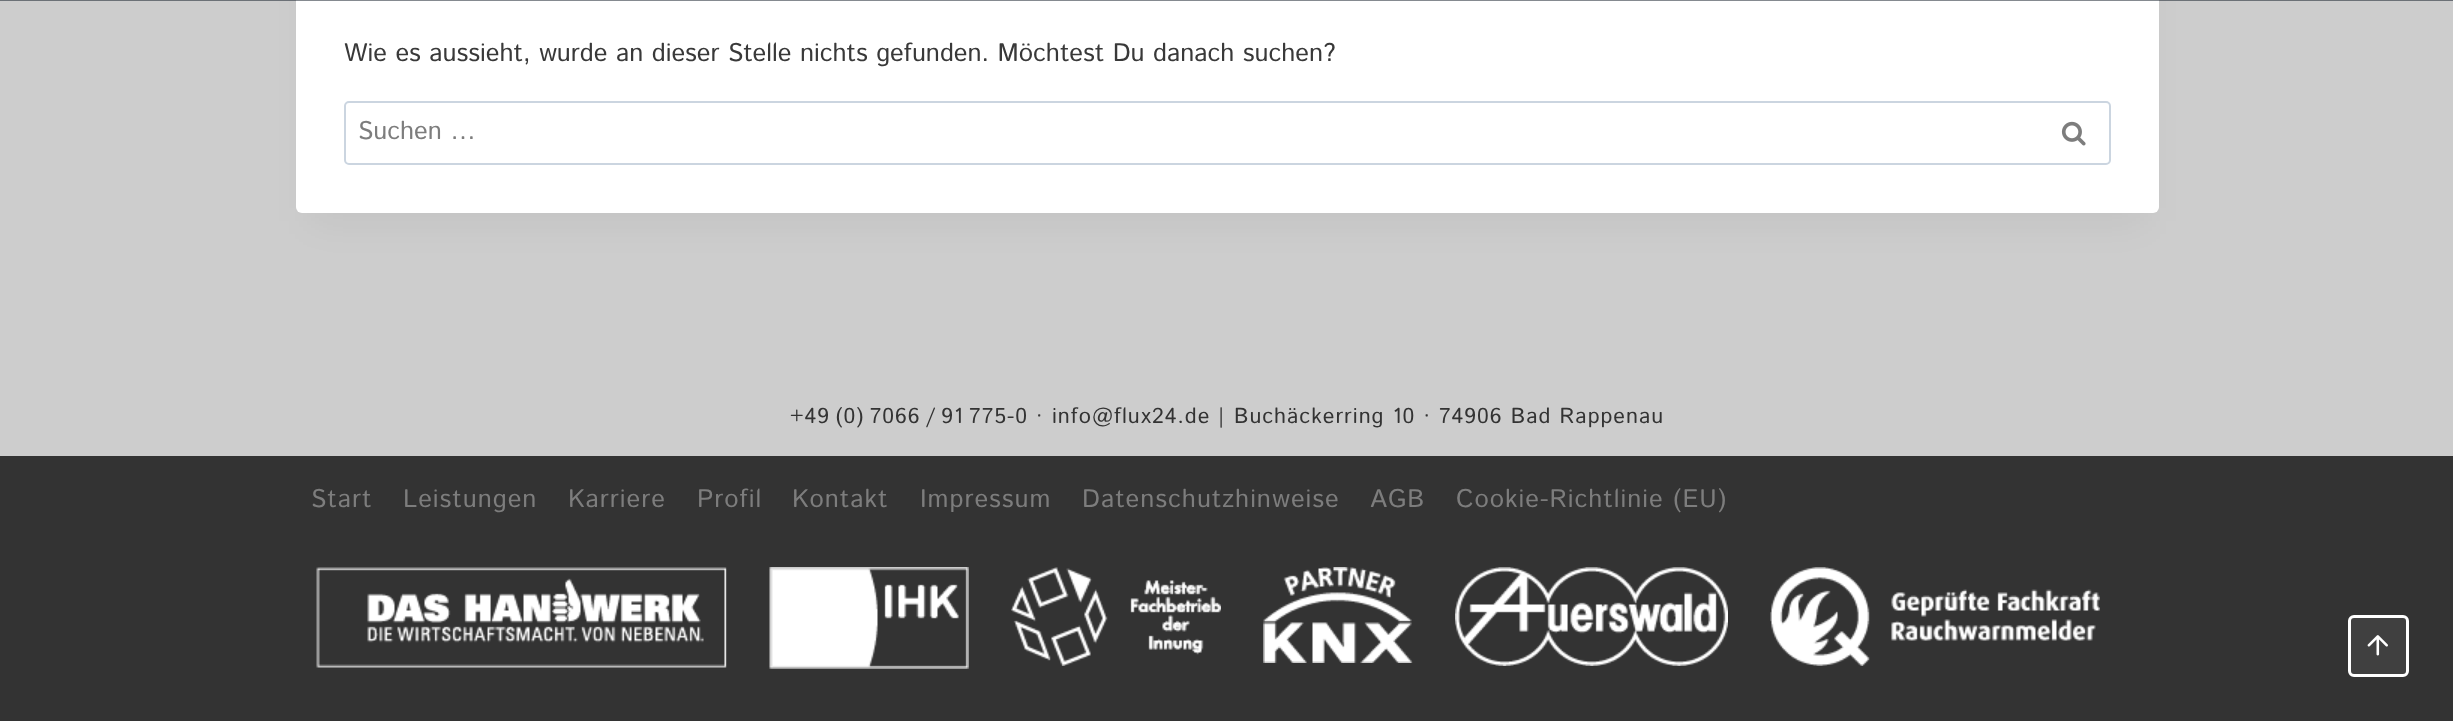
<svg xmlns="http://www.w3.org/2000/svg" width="2453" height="721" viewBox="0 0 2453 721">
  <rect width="100%" height="100%" fill="rgb(205,205,205)"/>
  <rect x="311" y="-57" width="1833" height="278" fill="rgba(0,0,0,0.05)" filter="blur(19px)"/>
  <rect x="296" y="-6" width="1863" height="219" rx="6" fill="rgb(255,255,255)"/>
  <rect x="0" y="0" width="2453" height="1" fill="rgba(11,22,34,0.5)"/>
  <text x="344" y="61" font-family="Istok Web" font-size="25.5" fill="rgb(57,57,57)">Wie es aussieht, wurde an dieser Stelle nichts gefunden. Möchtest Du danach suchen?</text>
  <rect x="345" y="102" width="1765" height="62" rx="4" fill="none" stroke="rgb(203,213,224)" stroke-width="2"/>
  <text x="358" y="139" font-family="Istok Web" font-size="25.5" fill="rgb(125,125,125)">Suchen …</text>
  <image x="2061" y="121" width="25" height="25" href="pic1.png"/>
  <text x="790" y="423" font-family="Istok Web" font-size="21.7" letter-spacing="1" fill="rgb(51,51,51)">+49 (0) 7066 / 91 775-0</text>
  <text x="1036" y="423" font-family="Istok Web" font-size="21.7" letter-spacing="1" fill="rgb(57,57,57)">·</text>
  <text x="1052" y="423" font-family="Istok Web" font-size="21.7" letter-spacing="1" fill="rgb(51,51,51)">info@flux24.de</text>
  <text x="1218" y="423" font-family="Istok Web" font-size="21.7" letter-spacing="1" fill="rgb(57,57,57)">|</text>
  <text x="1234" y="423" font-family="Istok Web" font-size="21.7" letter-spacing="1" fill="rgb(51,51,51)">Buchäckerring 10 · 74906 Bad Rappenau</text>
  <rect x="0" y="456" width="2453" height="265" fill="rgb(51,51,51)"/>
  <g font-family="Istok Web" font-size="25.5" letter-spacing="1" fill="rgb(125,125,125)">
    <text x="311" y="507">Start</text>
    <text x="403" y="507">Leistungen</text>
    <text x="568" y="507">Karriere</text>
    <text x="697" y="507">Profil</text>
    <text x="792" y="507">Kontakt</text>
    <text x="920" y="507">Impressum</text>
    <text x="1082" y="507">Datenschutzhinweise</text>
    <text x="1370" y="507">AGB</text>
    <text x="1456" y="507">Cookie-Richtlinie (EU)</text>
  </g>
  <image x="316" y="567" width="411" height="101" href="pic2.png"/>
  <image x="769" y="567" width="200" height="102" href="pic3.png"/>
  <image x="1011" y="567" width="210" height="99" href="pic4.png"/>
  <image x="1263" y="567" width="150" height="96" href="pic5.png"/>
  <image x="1455" y="567" width="273" height="99" href="pic6.png"/>
  <image x="1770" y="567" width="330" height="99" href="pic7.png"/>
  <rect x="2349.5" y="616.5" width="58" height="59" rx="4.5" fill="rgb(64,64,64)" stroke="rgb(255,255,255)" stroke-width="3"/>
  <image x="2367" y="635" width="21" height="21" href="pic8.png"/>
</svg>
